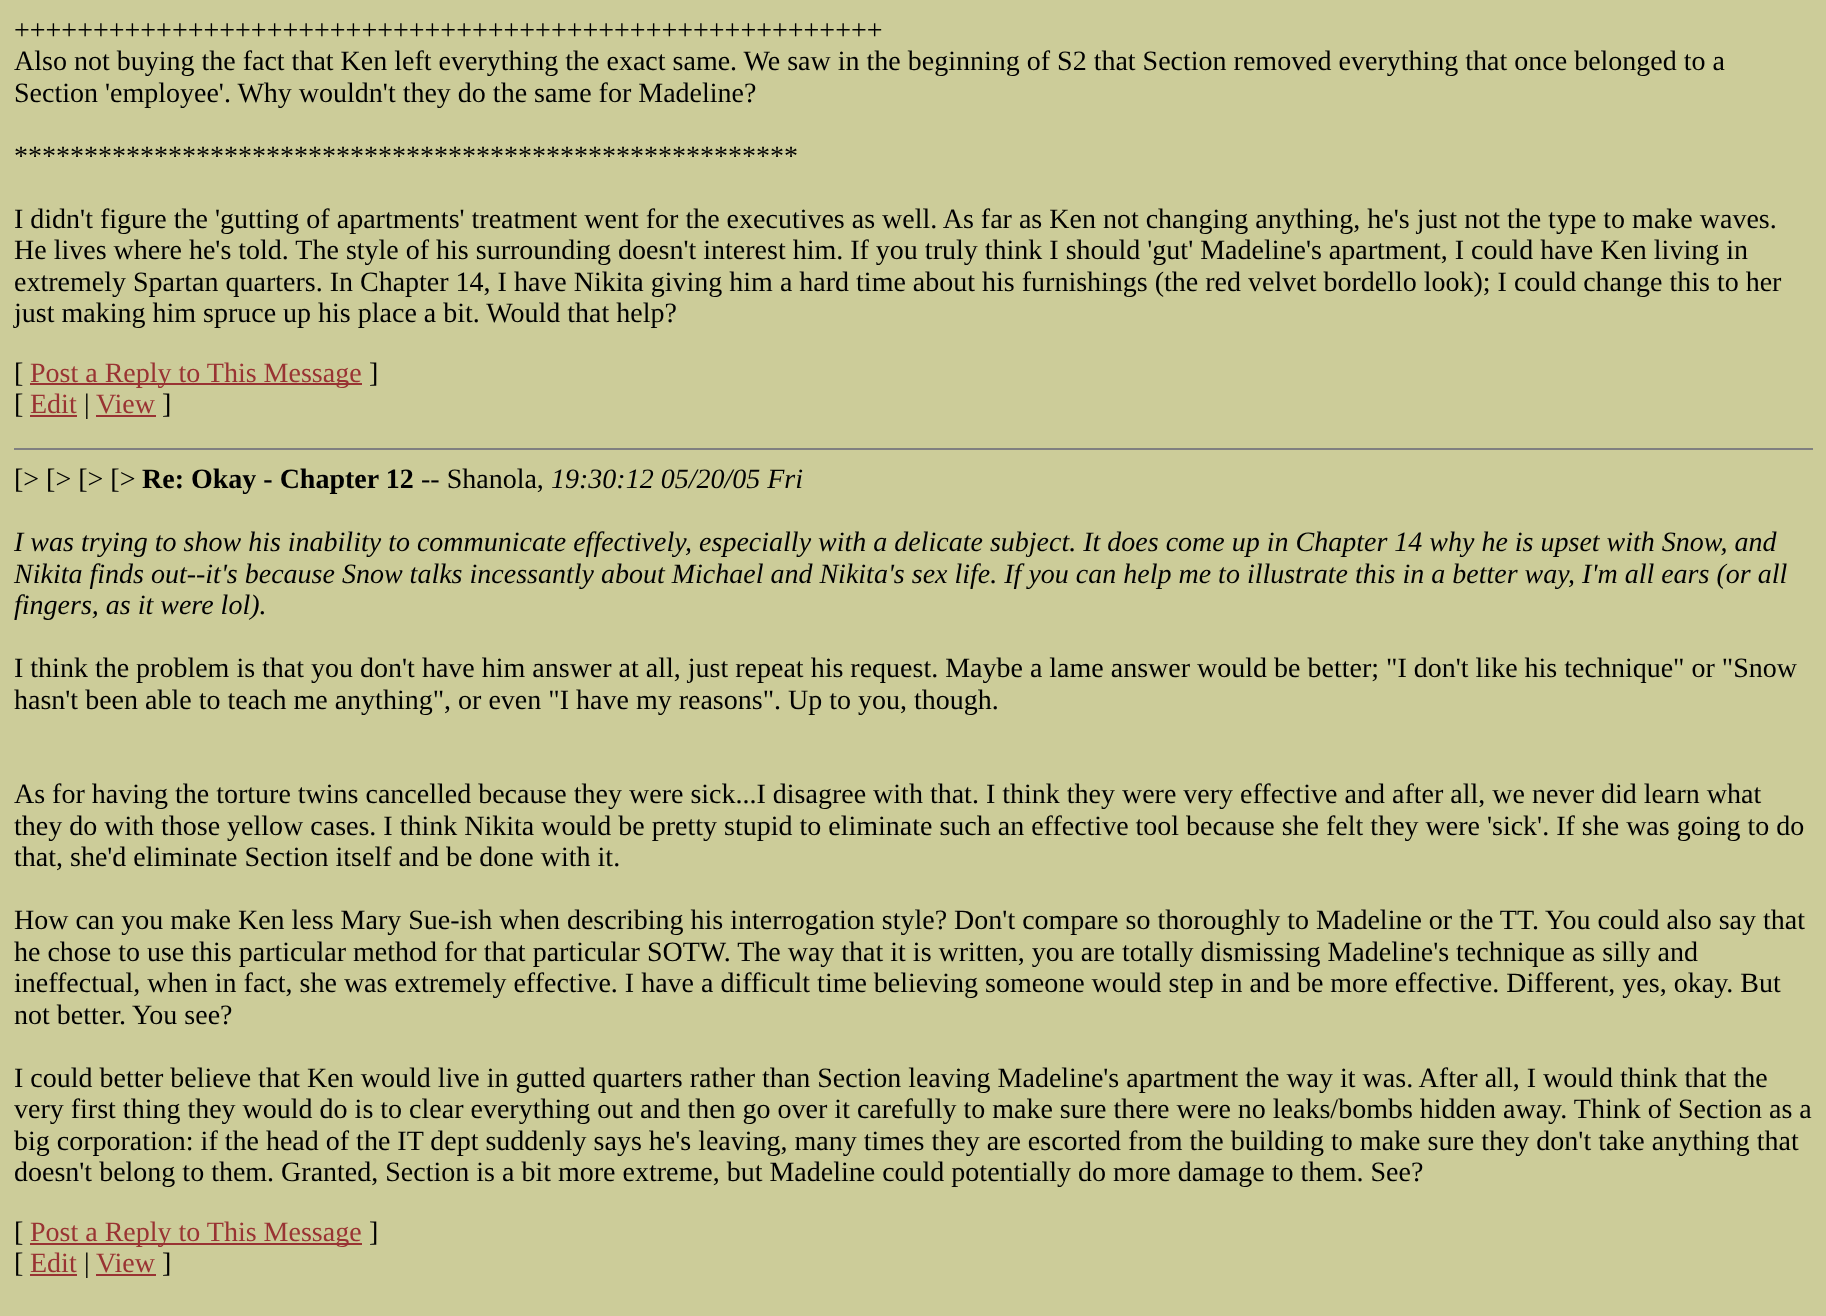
<svg xmlns="http://www.w3.org/2000/svg" width="1826" height="1316" viewBox="0 0 1826 1316">
  <rect width="100%" height="100%" fill="rgb(204,204,153)"/>
  <g font-family="Liberation Serif" font-size="28" fill="rgb(0,0,0)">
    <text>
      <tspan x="14" y="39">+++++++++++++++++++++++++++++++++++++++++++++++++++++++</tspan>
      <tspan x="14" y="70">Also not buying the fact that Ken left everything the exact same. We saw in the beginning of S2 that Section removed everything that once belonged to a</tspan>
      <tspan x="14" y="102">Section 'employee'. Why wouldn't they do the same for Madeline?</tspan>
    </text>
    <text x="14" y="165">********************************************************</text>
    <text>
      <tspan x="14" y="228">I didn't figure the 'gutting of apartments' treatment went for the executives as well. As far as Ken not changing anything, he's just not the type to make waves.</tspan>
      <tspan x="14" y="259">He lives where he's told. The style of his surrounding doesn't interest him. If you truly think I should 'gut' Madeline's apartment, I could have Ken living in</tspan>
      <tspan x="14" y="291">extremely Spartan quarters. In Chapter 14, I have Nikita giving him a hard time about his furnishings (the red velvet bordello look); I could change this to her</tspan>
      <tspan x="14" y="322">just making him spruce up his place a bit. Would that help?</tspan>
    </text>
    <text x="14" y="382">[</text>
  </g>
  <rect x="30" y="383" width="332" height="2" fill="rgb(153,51,51)"/>
  <text x="30" y="382" font-family="Liberation Serif" font-size="28" fill="rgb(153,51,51)">Post a Reply to This Message</text>
  <g font-family="Liberation Serif" font-size="28" fill="rgb(0,0,0)">
    <text x="369" y="382">]</text>
    <text x="14" y="413">[</text>
  </g>
  <text x="30" y="413" font-family="Liberation Serif" font-size="28" fill="rgb(153,51,51)">Edit</text>
  <rect x="30" y="415" width="47" height="2" fill="rgb(153,51,51)"/>
  <text x="84" y="413" font-family="Liberation Serif" font-size="28" fill="rgb(0,0,0)">|</text>
  <text x="96" y="413" font-family="Liberation Serif" font-size="28" fill="rgb(153,51,51)">View</text>
  <rect x="96" y="415" width="60" height="2" fill="rgb(153,51,51)"/>
  <text x="162" y="413" font-family="Liberation Serif" font-size="28" fill="rgb(0,0,0)">]</text>
  <rect x="14" y="448" width="1799" height="2" fill="rgb(128,128,128)"/>
  <text x="14" y="488" font-family="Liberation Serif" font-size="28" fill="rgb(0,0,0)">[&gt; [&gt; [&gt; [&gt;</text>
  <text x="142" y="488" font-family="Liberation Serif" font-size="28" font-weight="bold" fill="rgb(0,0,0)">Re: Okay - Chapter 12</text>
  <text x="421" y="488" font-family="Liberation Serif" font-size="28" fill="rgb(0,0,0)">-- Shanola,</text>
  <g font-family="Liberation Serif" font-size="28" font-style="italic" fill="rgb(0,0,0)">
    <text x="551" y="488">19:30:12 05/20/05 Fri</text>
    <text>
      <tspan x="14" y="551">I was trying to show his inability to communicate effectively, especially with a delicate subject. It does come up in Chapter 14 why he is upset with Snow, and</tspan>
      <tspan x="14" y="583">Nikita finds out--it's because Snow talks incessantly about Michael and Nikita's sex life. If you can help me to illustrate this in a better way, I'm all ears (or all</tspan>
      <tspan x="14" y="614">fingers, as it were lol).</tspan>
    </text>
  </g>
  <g font-family="Liberation Serif" font-size="28" fill="rgb(0,0,0)">
    <text>
      <tspan x="14" y="677">I think the problem is that you don't have him answer at all, just repeat his request. Maybe a lame answer would be better; "I don't like his technique" or "Snow</tspan>
      <tspan x="14" y="709">hasn't been able to teach me anything", or even "I have my reasons". Up to you, though.</tspan>
    </text>
    <text>
      <tspan x="14" y="803">As for having the torture twins cancelled because they were sick...I disagree with that. I think they were very effective and after all, we never did learn what</tspan>
      <tspan x="14" y="835">they do with those yellow cases. I think Nikita would be pretty stupid to eliminate such an effective tool because she felt they were 'sick'. If she was going to do</tspan>
      <tspan x="14" y="866">that, she'd eliminate Section itself and be done with it.</tspan>
    </text>
    <text>
      <tspan x="14" y="929">How can you make Ken less Mary Sue-ish when describing his interrogation style? Don't compare so thoroughly to Madeline or the TT. You could also say that</tspan>
      <tspan x="14" y="961">he chose to use this particular method for that particular SOTW. The way that it is written, you are totally dismissing Madeline's technique as silly and</tspan>
      <tspan x="14" y="992">ineffectual, when in fact, she was extremely effective. I have a difficult time believing someone would step in and be more effective. Different, yes, okay. But</tspan>
      <tspan x="14" y="1024">not better. You see?</tspan>
    </text>
    <text>
      <tspan x="14" y="1087">I could better believe that Ken would live in gutted quarters rather than Section leaving Madeline's apartment the way it was. After all, I would think that the</tspan>
      <tspan x="14" y="1118">very first thing they would do is to clear everything out and then go over it carefully to make sure there were no leaks/bombs hidden away. Think of Section as a</tspan>
      <tspan x="14" y="1150">big corporation: if the head of the IT dept suddenly says he's leaving, many times they are escorted from the building to make sure they don't take anything that</tspan>
      <tspan x="14" y="1181">doesn't belong to them. Granted, Section is a bit more extreme, but Madeline could potentially do more damage to them. See?</tspan>
    </text>
    <text x="14" y="1241">[</text>
  </g>
  <rect x="30" y="1243" width="332" height="2" fill="rgb(153,51,51)"/>
  <text x="30" y="1241" font-family="Liberation Serif" font-size="28" fill="rgb(153,51,51)">Post a Reply to This Message</text>
  <g font-family="Liberation Serif" font-size="28" fill="rgb(0,0,0)">
    <text x="369" y="1241">]</text>
    <text x="14" y="1272">[</text>
  </g>
  <text x="30" y="1272" font-family="Liberation Serif" font-size="28" fill="rgb(153,51,51)">Edit</text>
  <rect x="30" y="1274" width="47" height="2" fill="rgb(153,51,51)"/>
  <text x="84" y="1272" font-family="Liberation Serif" font-size="28" fill="rgb(0,0,0)">|</text>
  <text x="96" y="1272" font-family="Liberation Serif" font-size="28" fill="rgb(153,51,51)">View</text>
  <rect x="96" y="1274" width="60" height="2" fill="rgb(153,51,51)"/>
  <text x="162" y="1272" font-family="Liberation Serif" font-size="28" fill="rgb(0,0,0)">]</text>
</svg>
